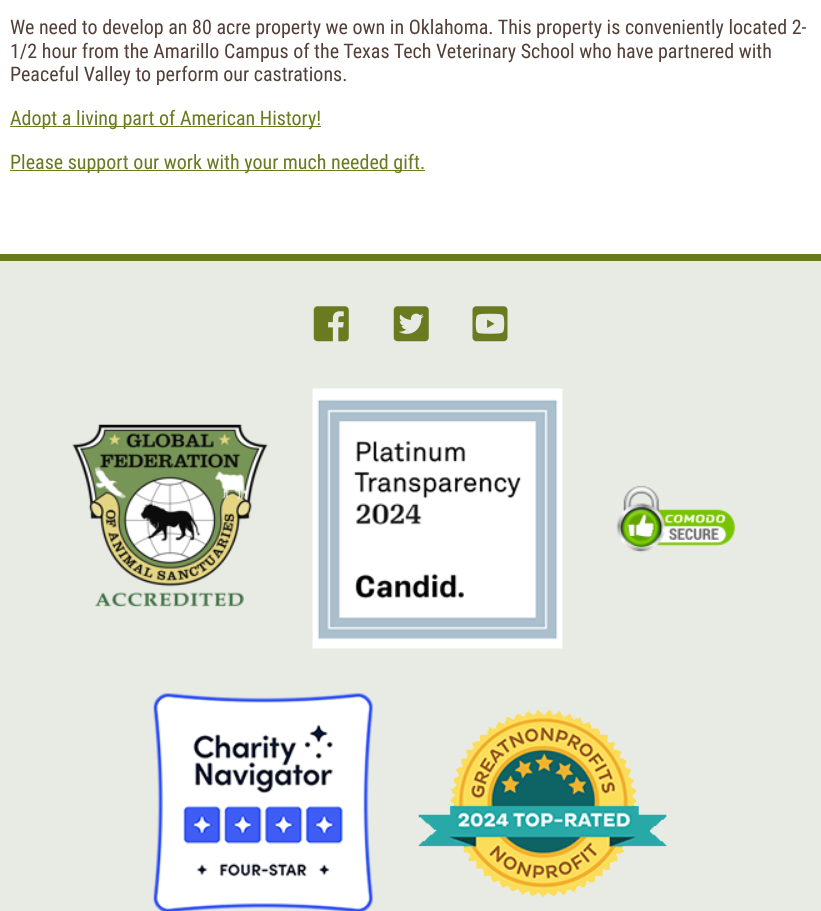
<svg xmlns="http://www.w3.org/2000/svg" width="821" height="911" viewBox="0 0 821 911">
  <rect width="100%" height="100%" fill="rgb(255,255,255)"/>
  <g font-family="Roboto Condensed" font-size="20" fill="rgb(82,63,56)">
    <text>
      <tspan x="10" y="34">We need to develop an 80 acre property we own in Oklahoma. This property is conveniently located 2-</tspan>
      <tspan x="10" y="58">1/2 hour from the Amarillo Campus of the Texas Tech Veterinary School who have partnered with</tspan>
      <tspan x="10" y="81">Peaceful Valley to perform our castrations.</tspan>
    </text>
  </g>
  <rect x="10" y="126" width="311" height="1" fill="rgb(105,122,33)"/>
  <text x="10" y="125" font-family="Roboto Condensed" font-size="20" fill="rgb(105,122,33)">Adopt a living part of American History!</text>
  <rect x="10" y="170" width="415" height="1" fill="rgb(105,122,33)"/>
  <text x="10" y="169" font-family="Roboto Condensed" font-size="20" fill="rgb(105,122,33)">Please support our work with your much needed gift.</text>
  <rect x="0" y="261" width="821" height="650" fill="rgb(232,235,228)"/>
  <rect x="0" y="254" width="821" height="7" fill="rgb(105,122,33)"/>
  <image x="313" y="306" width="36" height="36" href="pic1.png"/>
  <image x="393" y="306" width="36" height="36" href="pic2.png"/>
  <image x="472" y="306" width="36" height="36" href="pic3.png"/>
  <image x="72" y="424" width="196" height="183" href="pic4.png"/>
  <image x="312" y="388" width="251" height="261" href="pic5.png"/>
  <image x="616" y="485" width="120" height="68" href="pic6.png"/>
  <image x="153" y="693" width="220" height="218" href="pic7.png"/>
  <image x="418" y="709" width="249" height="189" href="pic8.png"/>
</svg>
